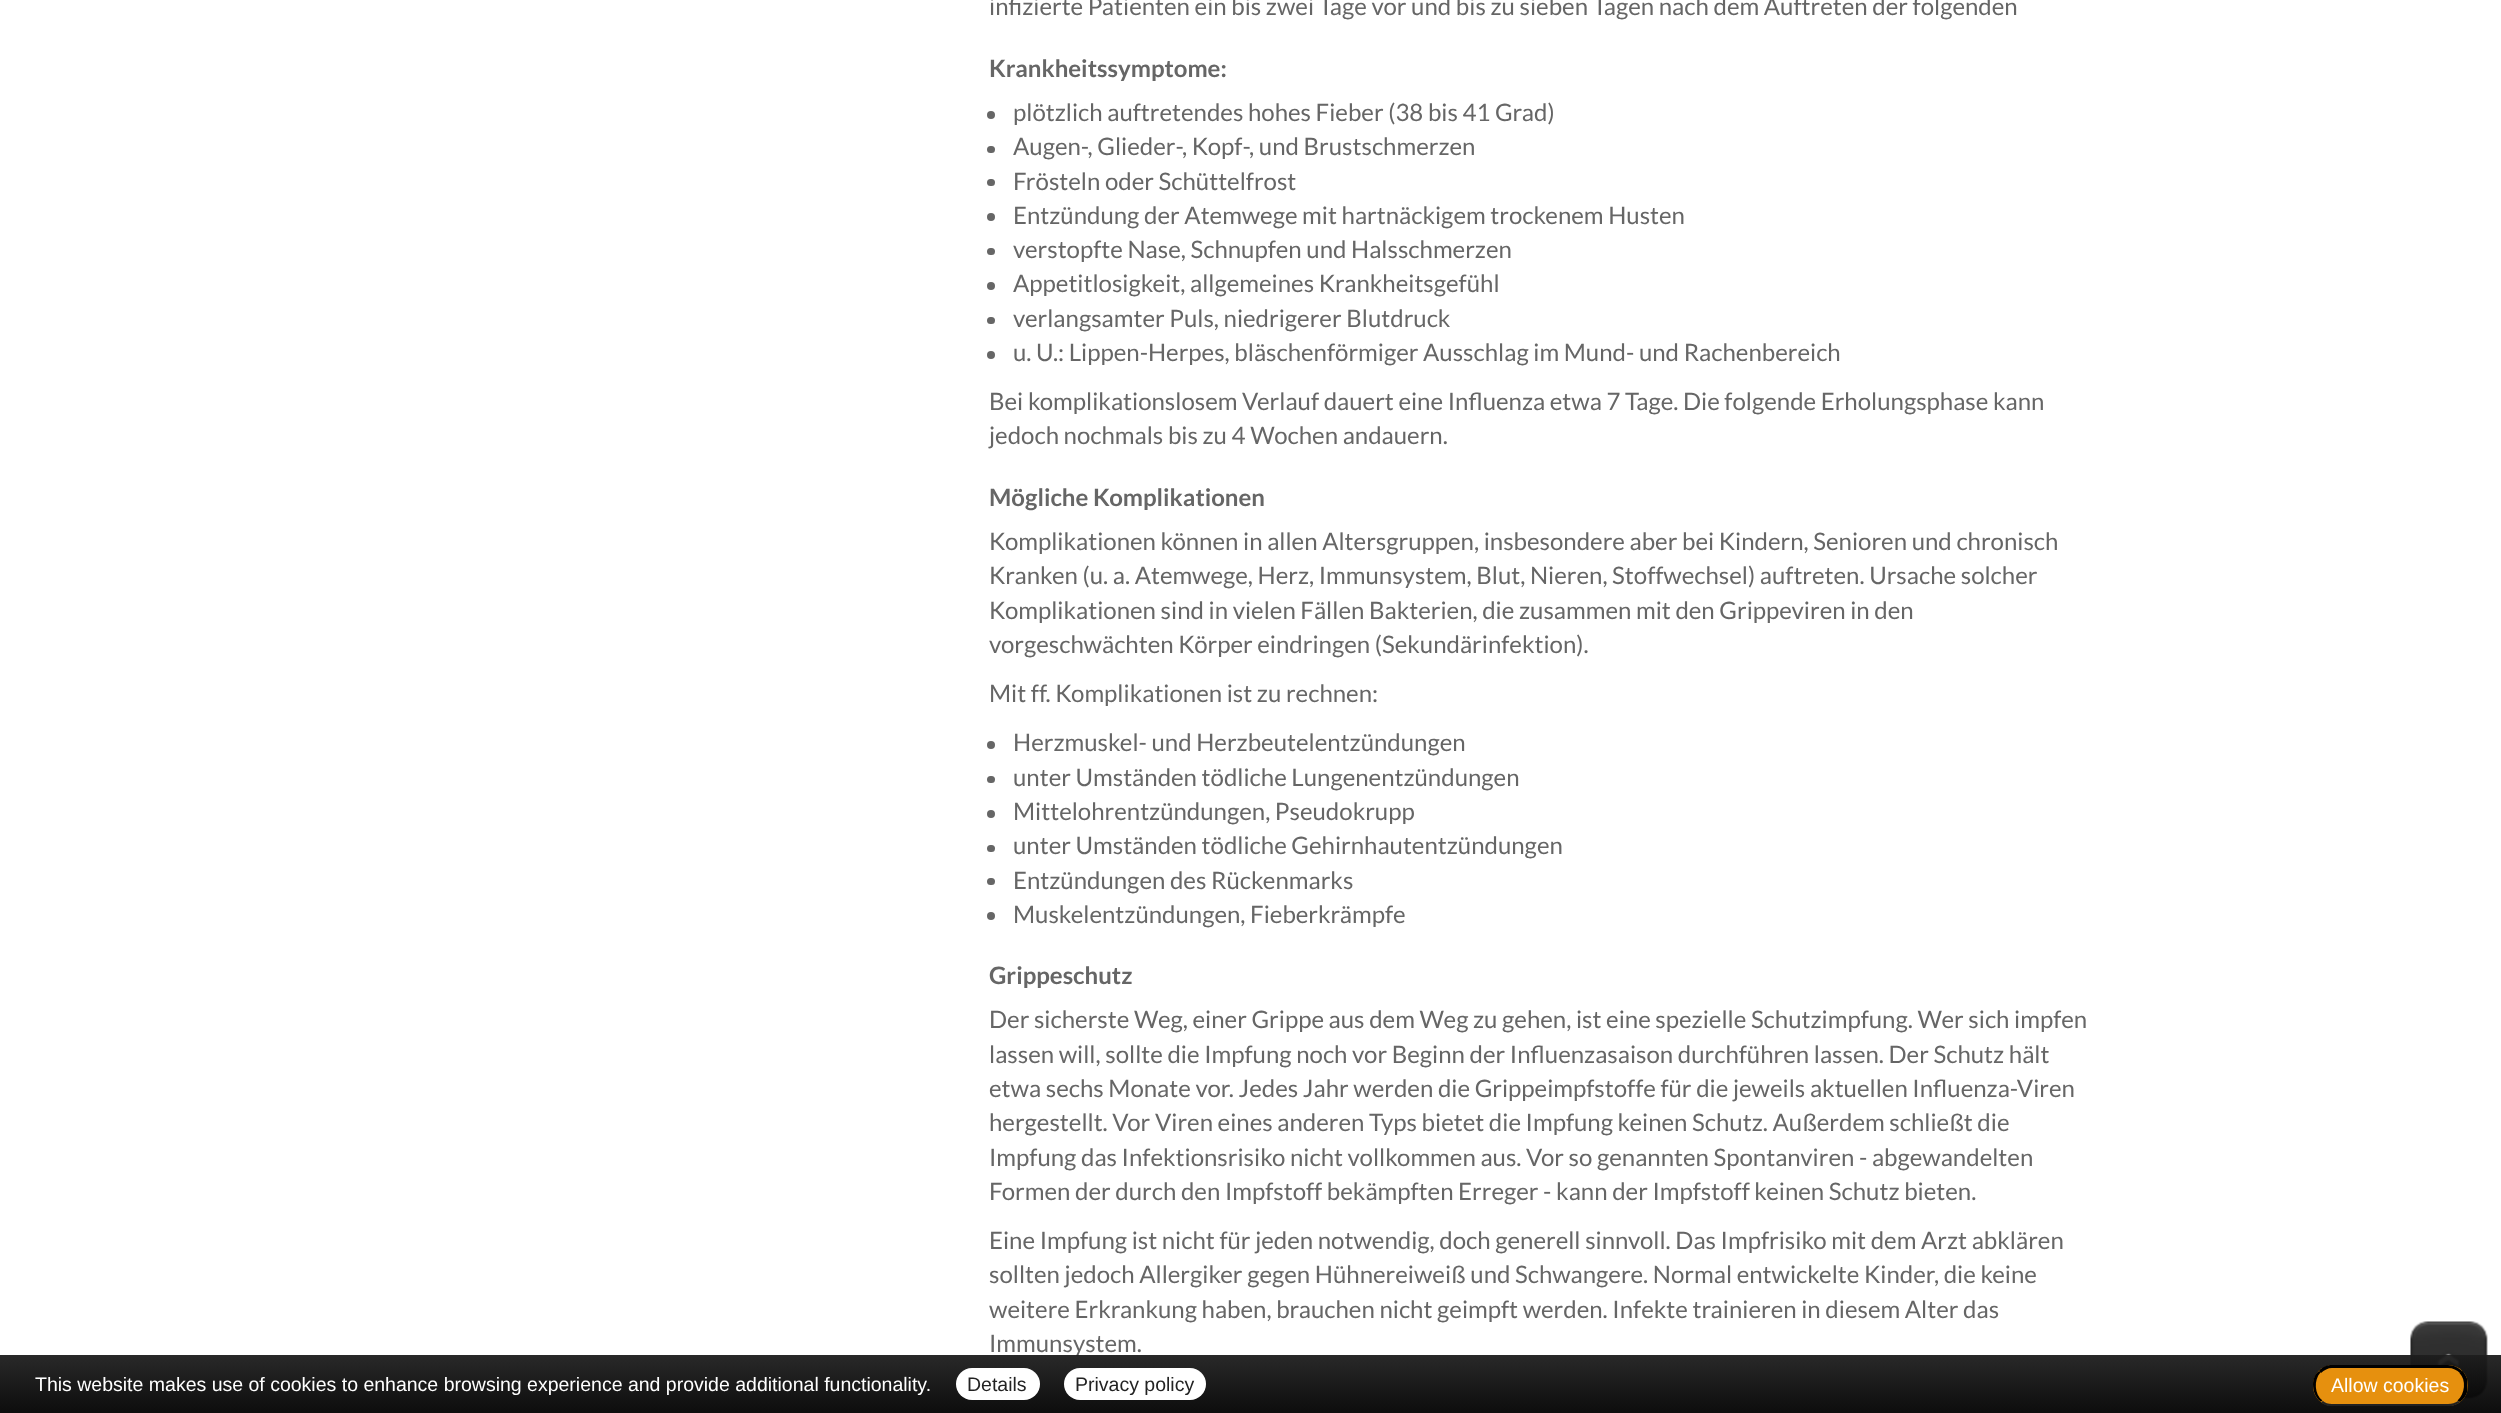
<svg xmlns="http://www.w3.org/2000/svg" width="2501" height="1413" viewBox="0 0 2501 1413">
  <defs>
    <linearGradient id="g1" gradientUnits="userSpaceOnUse" x1="1251" y1="1354" x2="1251" y2="1413"><stop offset="0" stop-color="rgb(30,30,30)" stop-opacity="0.95"/><stop offset="1" stop-color="rgb(0,0,0)" stop-opacity="0.95"/></linearGradient>
  </defs>
  <rect width="100%" height="100%" fill="rgb(255,255,255)"/>
  <text x="989" y="15" font-family="Lato" font-size="24" fill="rgb(102,102,102)">infizierte Patienten ein bis zwei Tage vor und bis zu sieben Tagen nach dem Auftreten der folgenden</text>
  <text x="989" y="77" font-family="Lato" font-size="24" font-weight="bold" fill="rgb(102,102,102)">Krankheitssymptome:</text>
  <circle cx="991" cy="115" r="4" fill="rgb(102,102,102)"/>
  <text x="1013" y="121" font-family="Lato" font-size="24" fill="rgb(102,102,102)">plötzlich auftretendes hohes Fieber (38 bis 41 Grad)</text>
  <rect x="987" y="146" width="8" height="7" rx="3.5" fill="rgb(102,102,102)"/>
  <text x="1013" y="155" font-family="Lato" font-size="24" fill="rgb(102,102,102)">Augen-, Glieder-, Kopf-, und Brustschmerzen</text>
  <rect x="987" y="179" width="8" height="7" rx="3.5" fill="rgb(102,102,102)"/>
  <text x="1013" y="190" font-family="Lato" font-size="24" fill="rgb(102,102,102)">Frösteln oder Schüttelfrost</text>
  <circle cx="991" cy="217" r="4" fill="rgb(102,102,102)"/>
  <text x="1013" y="224" font-family="Lato" font-size="24" fill="rgb(102,102,102)">Entzündung der Atemwege mit hartnäckigem trockenem Husten</text>
  <rect x="987" y="248" width="8" height="7" rx="3.5" fill="rgb(102,102,102)"/>
  <text x="1013" y="258" font-family="Lato" font-size="24" fill="rgb(102,102,102)">verstopfte Nase, Schnupfen und Halsschmerzen</text>
  <circle cx="991" cy="286" r="4" fill="rgb(102,102,102)"/>
  <text x="1013" y="292" font-family="Lato" font-size="24" fill="rgb(102,102,102)">Appetitlosigkeit, allgemeines Krankheitsgefühl</text>
  <rect x="987" y="317" width="8" height="7" rx="3.5" fill="rgb(102,102,102)"/>
  <text x="1013" y="327" font-family="Lato" font-size="24" fill="rgb(102,102,102)">verlangsamter Puls, niedrigerer Blutdruck</text>
  <circle cx="991" cy="355" r="4" fill="rgb(102,102,102)"/>
  <g font-family="Lato" font-size="24" fill="rgb(102,102,102)">
    <text x="1013" y="361">u. U.: Lippen-Herpes, bläschenförmiger Ausschlag im Mund- und Rachenbereich</text>
    <text>
      <tspan x="989" y="410">Bei komplikationslosem Verlauf dauert eine Influenza etwa 7 Tage. Die folgende Erholungsphase kann</tspan>
      <tspan x="989" y="444">jedoch nochmals bis zu 4 Wochen andauern.</tspan>
    </text>
  </g>
  <text x="989" y="506" font-family="Lato" font-size="24" font-weight="bold" fill="rgb(102,102,102)">Mögliche Komplikationen</text>
  <g font-family="Lato" font-size="24" fill="rgb(102,102,102)">
    <text>
      <tspan x="989" y="550">Komplikationen können in allen Altersgruppen, insbesondere aber bei Kindern, Senioren und chronisch</tspan>
      <tspan x="989" y="584">Kranken (u. a. Atemwege, Herz, Immunsystem, Blut, Nieren, Stoffwechsel) auftreten. Ursache solcher</tspan>
      <tspan x="989" y="619">Komplikationen sind in vielen Fällen Bakterien, die zusammen mit den Grippeviren in den</tspan>
      <tspan x="989" y="653">vorgeschwächten Körper eindringen (Sekundärinfektion).</tspan>
    </text>
    <text x="989" y="702">Mit ff. Komplikationen ist zu rechnen:</text>
  </g>
  <circle cx="991" cy="745" r="4" fill="rgb(102,102,102)"/>
  <text x="1013" y="751" font-family="Lato" font-size="24" fill="rgb(102,102,102)">Herzmuskel- und Herzbeutelentzündungen</text>
  <rect x="987" y="776" width="8" height="7" rx="3.5" fill="rgb(102,102,102)"/>
  <text x="1013" y="786" font-family="Lato" font-size="24" fill="rgb(102,102,102)">unter Umständen tödliche Lungenentzündungen</text>
  <circle cx="991" cy="814" r="4" fill="rgb(102,102,102)"/>
  <text x="1013" y="820" font-family="Lato" font-size="24" fill="rgb(102,102,102)">Mittelohrentzündungen, Pseudokrupp</text>
  <rect x="987" y="845" width="8" height="7" rx="3.5" fill="rgb(102,102,102)"/>
  <text x="1013" y="854" font-family="Lato" font-size="24" fill="rgb(102,102,102)">unter Umständen tödliche Gehirnhautentzündungen</text>
  <rect x="987" y="878" width="8" height="7" rx="3.5" fill="rgb(102,102,102)"/>
  <text x="1013" y="889" font-family="Lato" font-size="24" fill="rgb(102,102,102)">Entzündungen des Rückenmarks</text>
  <circle cx="991" cy="916" r="4" fill="rgb(102,102,102)"/>
  <text x="1013" y="923" font-family="Lato" font-size="24" fill="rgb(102,102,102)">Muskelentzündungen, Fieberkrämpfe</text>
  <text x="989" y="984" font-family="Lato" font-size="24" font-weight="bold" fill="rgb(102,102,102)">Grippeschutz</text>
  <g font-family="Lato" font-size="24" fill="rgb(102,102,102)">
    <text>
      <tspan x="989" y="1028">Der sicherste Weg, einer Grippe aus dem Weg zu gehen, ist eine spezielle Schutzimpfung. Wer sich impfen</tspan>
      <tspan x="989" y="1063">lassen will, sollte die Impfung noch vor Beginn der Influenzasaison durchführen lassen. Der Schutz hält</tspan>
      <tspan x="989" y="1097">etwa sechs Monate vor. Jedes Jahr werden die Grippeimpfstoffe für die jeweils aktuellen Influenza-Viren</tspan>
      <tspan x="989" y="1131">hergestellt. Vor Viren eines anderen Typs bietet die Impfung keinen Schutz. Außerdem schließt die</tspan>
      <tspan x="989" y="1166">Impfung das Infektionsrisiko nicht vollkommen aus. Vor so genannten Spontanviren - abgewandelten</tspan>
      <tspan x="989" y="1200">Formen der durch den Impfstoff bekämpften Erreger - kann der Impfstoff keinen Schutz bieten.</tspan>
    </text>
    <text>
      <tspan x="989" y="1249">Eine Impfung ist nicht für jeden notwendig, doch generell sinnvoll. Das Impfrisiko mit dem Arzt abklären</tspan>
      <tspan x="989" y="1283">sollten jedoch Allergiker gegen Hühnereiweiß und Schwangere. Normal entwickelte Kinder, die keine</tspan>
      <tspan x="989" y="1318">weitere Erkrankung haben, brauchen nicht geimpft werden. Infekte trainieren in diesem Alter das</tspan>
      <tspan x="989" y="1352">Immunsystem.</tspan>
    </text>
  </g>
  <image x="2410" y="1321" width="78" height="78" href="pic1.png"/>
  <rect x="0" y="1355" width="2501" height="58" fill="url(#g1)"/>
  <text x="35" y="1391" font-family="Liberation Sans" font-size="19.5" fill="rgb(255,255,255)">This website makes use of cookies to enhance browsing experience and provide additional functionality.</text>
  <rect x="956" y="1368" width="84" height="32" rx="16" fill="rgb(255,255,255)"/>
  <text x="967" y="1391" font-family="Liberation Sans" font-size="19.5" fill="rgb(34,34,34)">Details</text>
  <rect x="1064" y="1368" width="142" height="32" rx="16" fill="rgb(255,255,255)"/>
  <text x="1075" y="1391" font-family="Liberation Sans" font-size="19.5" fill="rgb(34,34,34)">Privacy policy</text>
  <rect x="2313" y="1365" width="155" height="41" rx="20" fill="rgb(230,144,14)"/>
  <path d="M2332 1365C2327 1365 2322 1367 2319 1371L2321 1373C2324 1370 2328 1368 2332 1368H2448C2453 1368 2457 1370 2460 1373L2462 1371C2458 1367 2453 1365 2448 1365Z" fill="rgb(0,0,0)"/>
  <path d="M2467.5 1390.5C2466.5 1395 2464 1399 2460 1402L2457.5 1400.5C2465 1394 2466.5 1380 2459.5 1373L2462 1370.5C2464.5 1373 2466.5 1376.5 2467.5 1380Z" fill="rgb(0,0,0)"/>
  <path d="M2328 1406C2325 1405 2323 1404 2321 1402L2323 1401C2325 1403 2328 1404 2332 1404H2448C2452 1404 2455 1403 2458 1401L2460 1402C2458 1404 2455 1405 2452 1406Z" fill="rgb(34,34,34)"/>
  <path d="M2313 1384C2313 1391 2315 1397 2320.5 1401.5L2322.5 1400.5C2314.5 1394.5 2313.5 1380 2320.5 1372.5L2319 1371C2315 1374 2313 1379 2313 1384Z" fill="rgb(0,0,0)"/>
  <text x="2331" y="1392" font-family="Liberation Sans" font-size="19.5" fill="rgb(255,255,255)">Allow cookies</text>
</svg>
